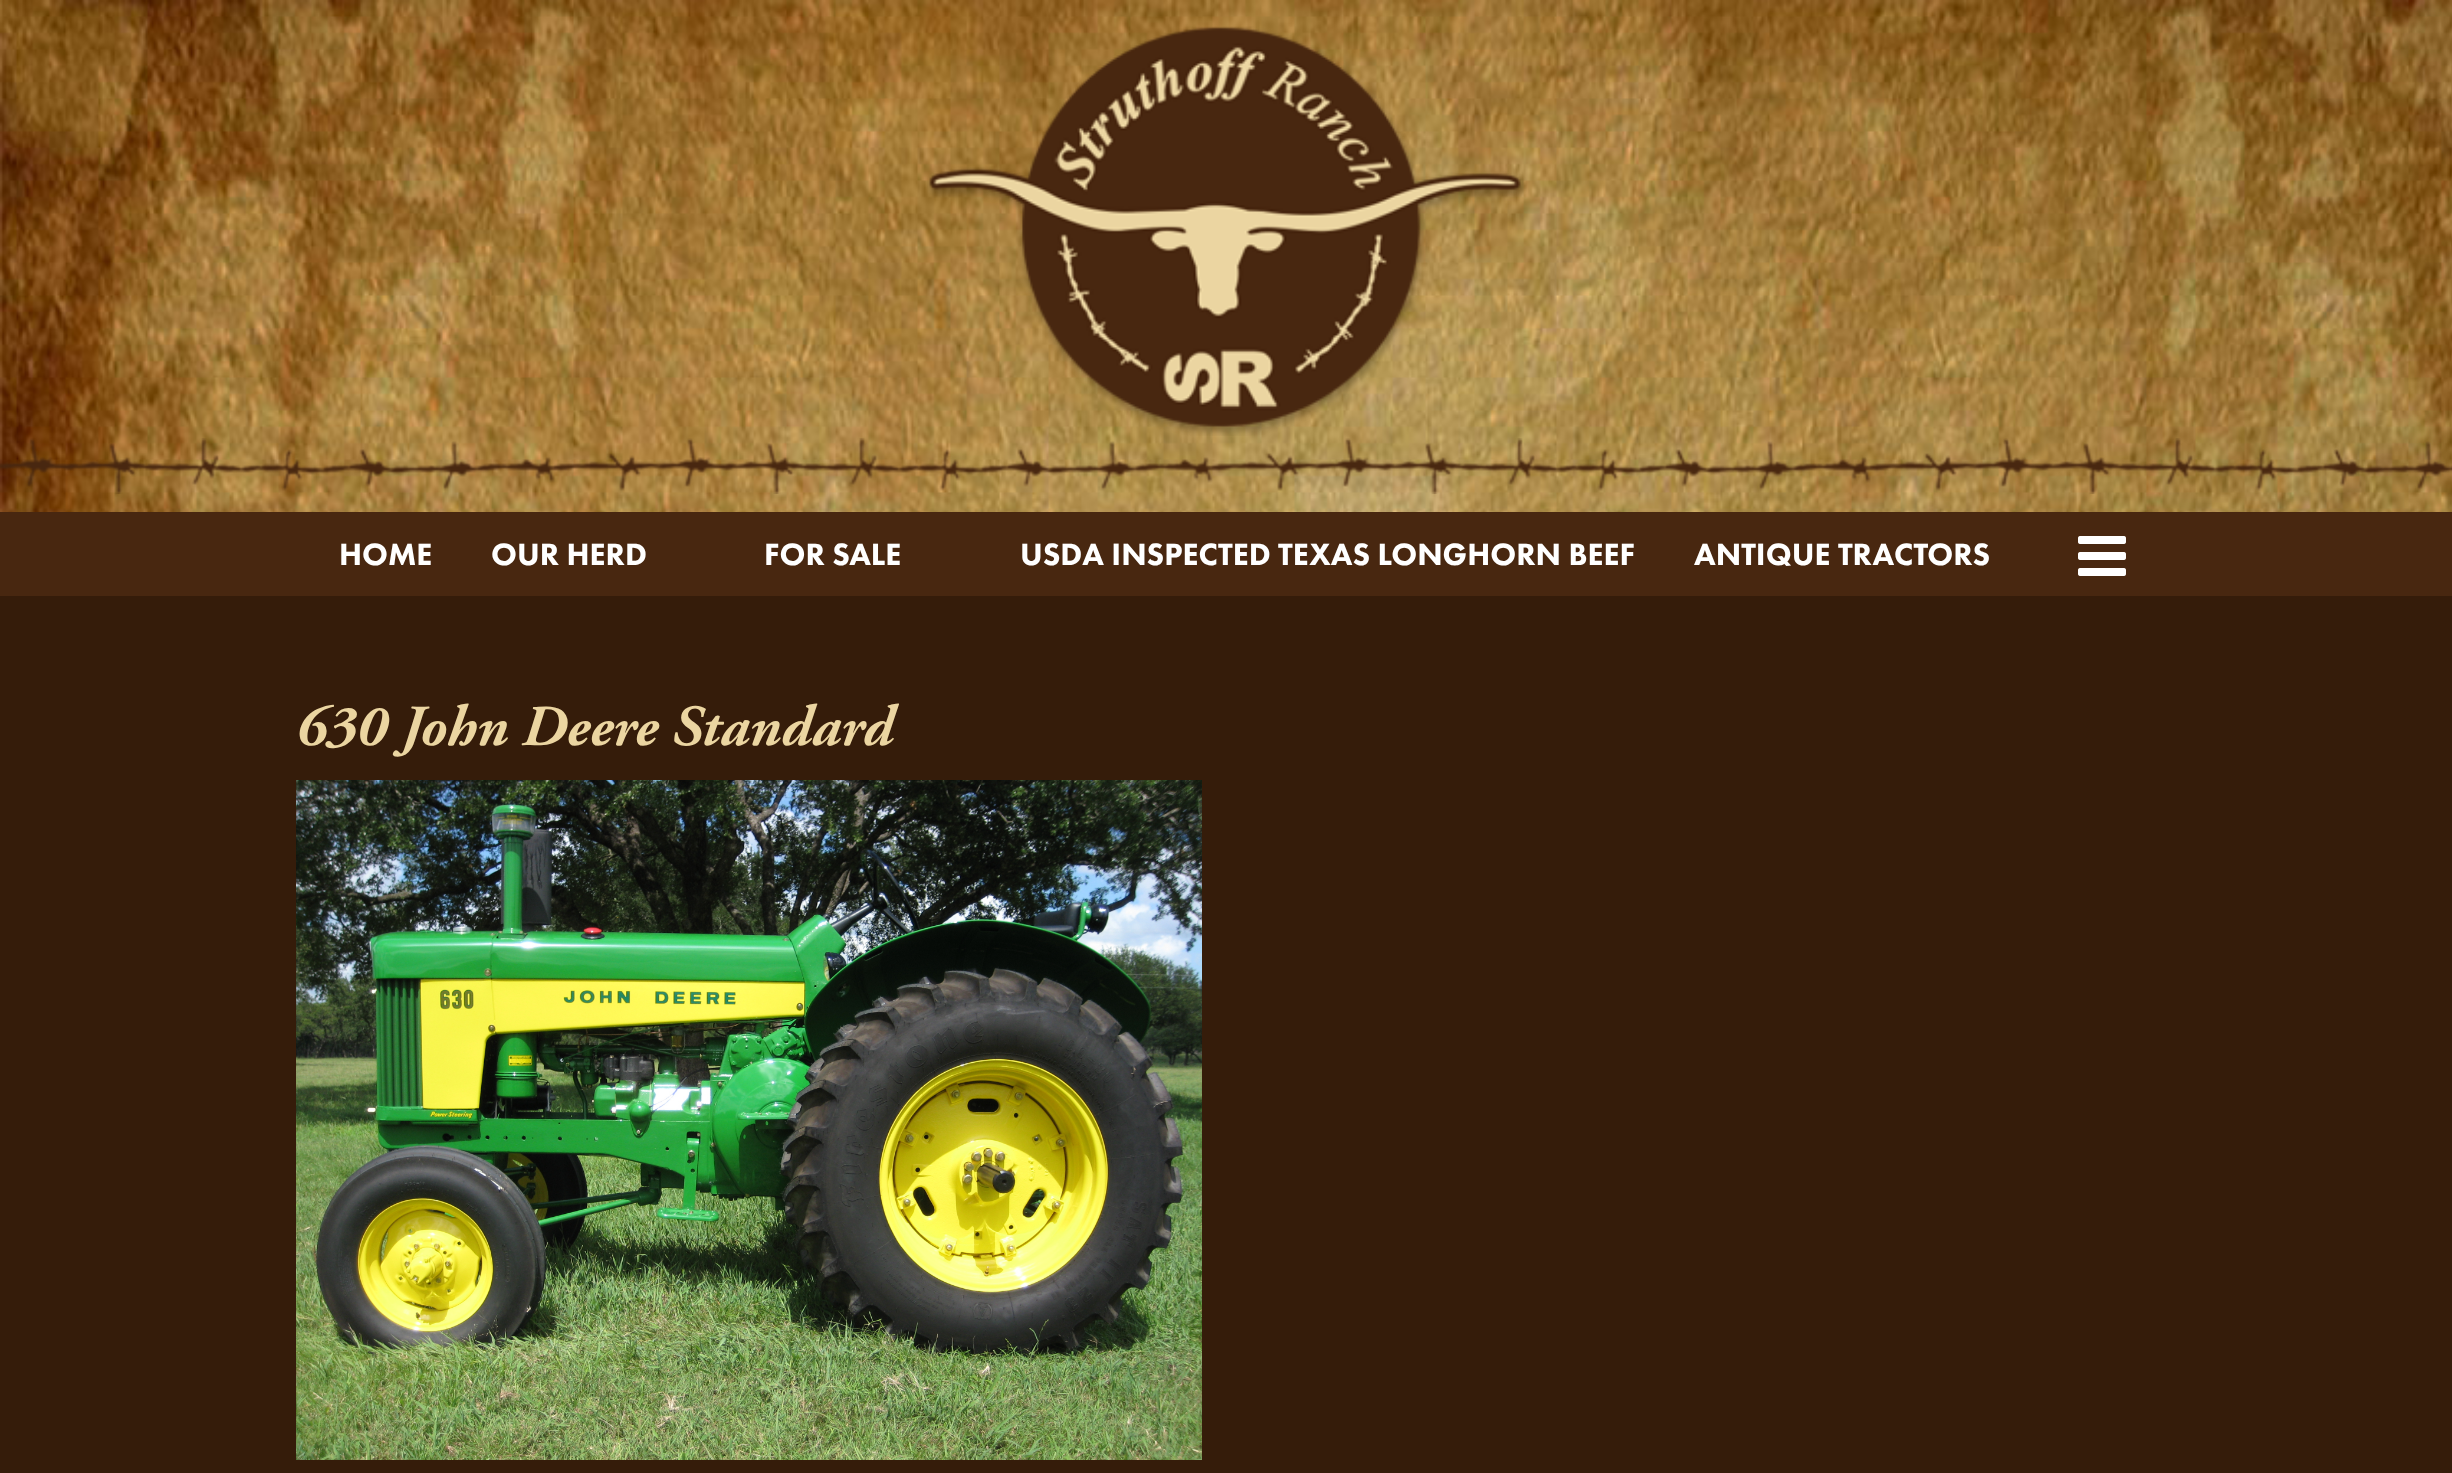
<svg xmlns="http://www.w3.org/2000/svg" width="2452" height="1473" viewBox="0 0 2452 1473">
  <rect width="100%" height="100%" fill="rgb(53,28,10)"/>
  <image x="0" y="0" width="2452" height="512" href="pic1.png"/>
  <image x="927" y="26" width="600" height="410" href="pic2.png"/>
  <image x="0" y="438" width="2452" height="56" href="pic3.png"/>
  <rect x="0" y="512" width="2452" height="84" fill="rgb(72,39,16)"/>
  <g font-family="Futura PT" font-size="32" font-weight="900" fill="rgb(255,255,255)">
    <text x="339" y="565">HOME</text>
    <text x="491" y="565">OUR HERD</text>
    <text x="764" y="565">FOR SALE</text>
    <text x="1020" y="565">USDA INSPECTED TEXAS LONGHORN BEEF</text>
    <text x="1694" y="565">ANTIQUE TRACTORS</text>
  </g>
  <image x="2078" y="536" width="48" height="40" href="pic4.png"/>
  <text x="296" y="745" font-family="Adobe Garamond" font-size="58" font-weight="bold" font-style="italic" fill="rgb(235,213,161)">630 John Deere Standard</text>
  <image x="296" y="780" width="906" height="680" href="pic5.png"/>
</svg>
